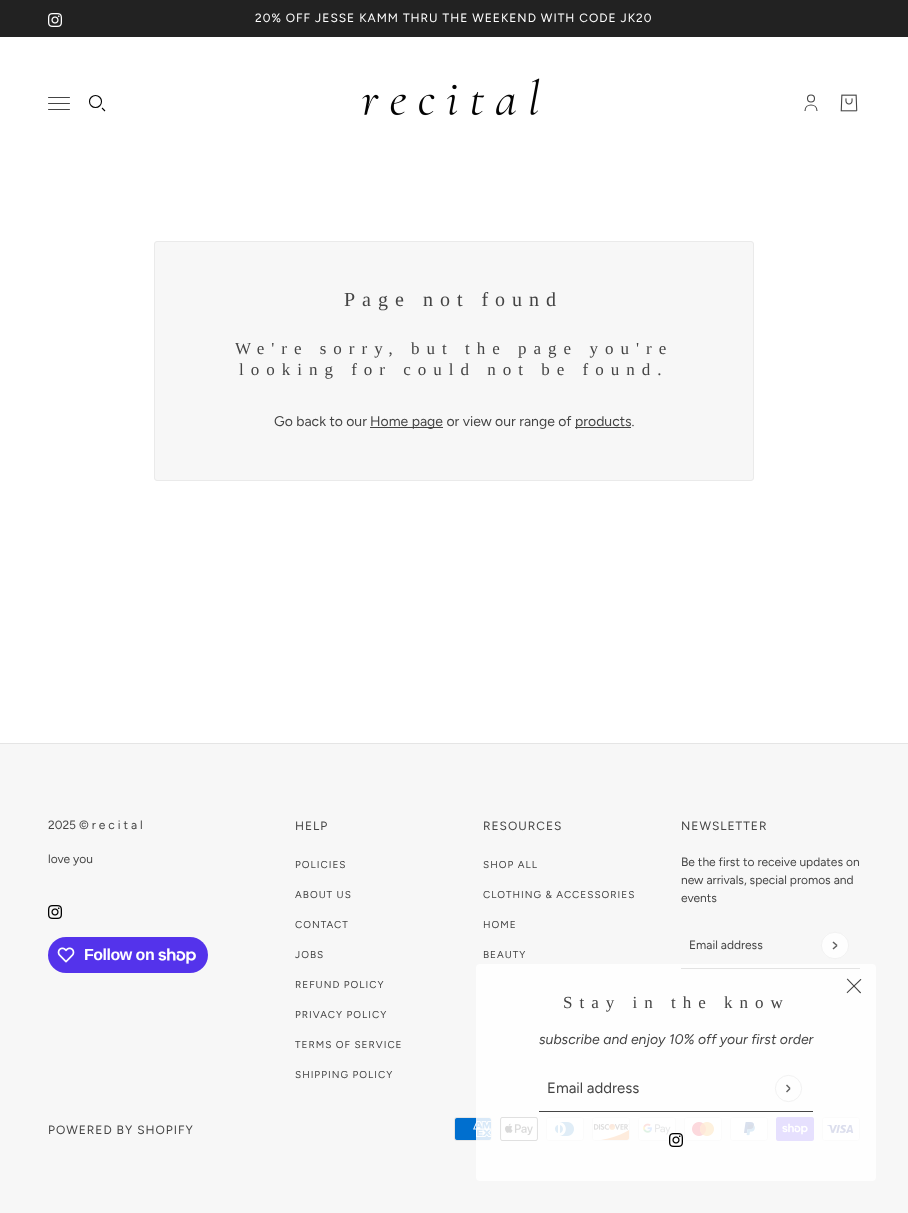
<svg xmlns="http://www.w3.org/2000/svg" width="908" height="1213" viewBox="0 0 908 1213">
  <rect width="100%" height="100%" fill="rgb(255,255,255)"/>
  <rect x="0" y="0" width="908" height="37" fill="rgb(34,34,34)"/>
  <image x="48" y="13" width="14" height="14" href="pic1.png"/>
  <text x="255" y="22" font-family="Figtree" font-size="12" letter-spacing="1" fill="rgb(255,255,255)">20% OFF JESSE KAMM THRU THE WEEKEND WITH CODE JK20</text>
  <rect x="48" y="97" width="22" height="1" rx="0.5" fill="rgb(68,68,68)"/>
  <rect x="48" y="103" width="22" height="1" rx="0.5" fill="rgb(68,68,68)"/>
  <rect x="48" y="109" width="22" height="1" rx="0.5" fill="rgb(68,68,68)"/>
  <circle cx="95.5" cy="101.5" r="6" fill="none" stroke="rgb(0,0,0)" stroke-width="1.1"/>
  <path d="M102 108L105 111" fill="none" stroke="rgb(0,0,0)" stroke-width="1.1"/>
  <image x="362" y="78" width="178" height="38" href="pic2.png"/>
  <circle cx="811" cy="98.5" r="3.5" fill="none" stroke="rgb(68,68,68)" stroke-width="1.1"/>
  <path d="M805 111C805 103 817 103 817 111" fill="none" stroke="rgb(68,68,68)" stroke-width="1.1"/>
  <image x="840" y="94" width="18" height="18" href="pic3.png"/>
  <rect x="154.5" y="241.5" width="599" height="239" rx="2.5" fill="rgb(247,247,247)" stroke="rgb(234,234,234)"/>
  <text x="344" y="306" font-family="Liberation Serif" font-size="20" letter-spacing="7" fill="rgb(68,68,68)">Page not found</text>
  <g font-family="Liberation Serif" font-size="17" letter-spacing="7" fill="rgb(68,68,68)">
    <text x="235" y="354">We're sorry, but the page you're</text>
    <text x="239" y="375">looking for could not be found.</text>
  </g>
  <text x="274" y="426" font-family="Figtree" font-size="14" fill="rgb(68,68,68)">Go back to our</text>
  <rect x="370" y="427" width="73" height="1" fill="rgb(68,68,68)"/>
  <text x="370" y="426" font-family="Figtree" font-size="14" fill="rgb(68,68,68)">Home page or view our range of</text>
  <rect x="575" y="427" width="56" height="1" fill="rgb(68,68,68)"/>
  <text x="575" y="426" font-family="Figtree" font-size="14" fill="rgb(68,68,68)">products.</text>
  <rect x="0" y="744" width="908" height="469" fill="rgb(247,247,247)"/>
  <rect x="0" y="743" width="908" height="1" fill="rgb(229,229,229)"/>
  <g font-family="Figtree" font-size="12" fill="rgb(68,68,68)">
    <text x="48" y="829">2025 © r e c i t a l</text>
    <text x="48" y="863">love you</text>
  </g>
  <image x="48" y="905" width="14" height="14" href="pic4.png"/>
  <rect x="48" y="937" width="160" height="36" rx="18" fill="rgb(84,51,235)"/>
  <image x="57" y="947" width="18" height="16" href="pic5.png"/>
  <text x="84" y="960" font-family="Liberation Sans" font-size="16" font-weight="bold" letter-spacing="-0.5" fill="rgb(255,255,255)">Follow on</text>
  <image x="158" y="948" width="38" height="16" href="pic6.png"/>
  <text x="295" y="830" font-family="Figtree" font-size="12" letter-spacing="1" fill="rgb(68,68,68)">HELP</text>
  <g font-family="Figtree" font-size="10" letter-spacing="1" fill="rgb(68,68,68)">
    <text x="295" y="868">POLICIES</text>
    <text x="295" y="898">ABOUT US</text>
    <text x="295" y="928">CONTACT</text>
    <text x="295" y="958">JOBS</text>
    <text x="295" y="988">REFUND POLICY</text>
    <text x="295" y="1018">PRIVACY POLICY</text>
    <text x="295" y="1048">TERMS OF SERVICE</text>
    <text x="295" y="1078">SHIPPING POLICY</text>
  </g>
  <text x="483" y="830" font-family="Figtree" font-size="12" letter-spacing="1" fill="rgb(68,68,68)">RESOURCES</text>
  <g font-family="Figtree" font-size="10" letter-spacing="1" fill="rgb(68,68,68)">
    <text x="483" y="868">SHOP ALL</text>
    <text x="483" y="898">CLOTHING &amp; ACCESSORIES</text>
    <text x="483" y="928">HOME</text>
    <text x="483" y="958">BEAUTY</text>
  </g>
  <text x="681" y="830" font-family="Figtree" font-size="12" letter-spacing="1" fill="rgb(68,68,68)">NEWSLETTER</text>
  <g font-family="Figtree" font-size="12" fill="rgb(68,68,68)">
    <text>
      <tspan x="681" y="866">Be the first to receive updates on</tspan>
      <tspan x="681" y="884">new arrivals, special promos and</tspan>
      <tspan x="681" y="902">events</tspan>
    </text>
  </g>
  <rect x="681" y="968" width="179" height="1" fill="rgb(68,68,68)"/>
  <text x="689" y="949" font-family="Figtree" font-size="12" fill="rgb(68,68,68)">Email address</text>
  <rect x="821" y="932" width="28" height="27" rx="13.5" fill="rgb(254,254,254)"/>
  <rect x="821.4" y="932.4" width="27.2" height="26.2" rx="13.1" fill="none" stroke="rgba(95,95,95,0.1)" stroke-width="0.8"/>
  <path d="M832.5 948.5L836.5 945L837.5 946L833.5 949.5Z" fill="rgb(95,95,95)"/>
  <path d="M833.5 941.5L837.5 945L836.5 946L832.5 942.5Z" fill="rgb(95,95,95)"/>
  <text x="48" y="1134" font-family="Figtree" font-size="12" letter-spacing="1" fill="rgb(68,68,68)">POWERED BY SHOPIFY</text>
  <image x="454" y="1117" width="38" height="24" href="pic7.png"/>
  <image x="500" y="1117" width="38" height="24" href="pic8.png"/>
  <image x="546" y="1117" width="38" height="24" href="pic9.png"/>
  <image x="592" y="1117" width="38" height="24" href="pic10.png"/>
  <image x="638" y="1117" width="38" height="24" href="pic11.png"/>
  <image x="684" y="1117" width="38" height="24" href="pic12.png"/>
  <image x="730" y="1117" width="38" height="24" href="pic13.png"/>
  <image x="776" y="1117" width="38" height="24" href="pic14.png"/>
  <image x="822" y="1117" width="38" height="24" href="pic15.png"/>
  <rect x="476" y="964" width="400" height="217" rx="4" fill="rgba(255,255,255,0.85)"/>
  <path d="M848 979L861 992.5V993C860.5 994 859 992 858 991L847 979.5C846.5 979 847.5 978.5 848 979Z" fill="rgb(68,68,68)"/>
  <path d="M847 992L860.5 979H861C862 979.5 860 981 859 982L847.5 993C847 993.5 846.5 992.5 847 992Z" fill="rgb(68,68,68)"/>
  <text x="563" y="1008" font-family="Liberation Serif" font-size="17" letter-spacing="7" fill="rgb(68,68,68)">Stay in the know</text>
  <text x="539" y="1044" font-family="Figtree" font-size="14" font-style="italic" fill="rgb(68,68,68)">subscribe and enjoy 10% off your first order</text>
  <rect x="539" y="1111" width="274" height="1" fill="rgb(68,68,68)"/>
  <text x="547" y="1093" font-family="Figtree" font-size="15" fill="rgb(68,68,68)">Email address</text>
  <circle cx="788.5" cy="1088.5" r="13.1" fill="none" stroke="rgb(238,238,238)" stroke-width="0.8"/>
  <path d="M786 1091.5L789.5 1088L790.5 1089L787 1092.5Z" fill="rgb(96,96,96)"/>
  <path d="M787 1084.5L790.5 1088L789.5 1089L786 1085.5Z" fill="rgb(96,96,96)"/>
  <image x="669" y="1133" width="14" height="14" href="pic16.png"/>
</svg>
